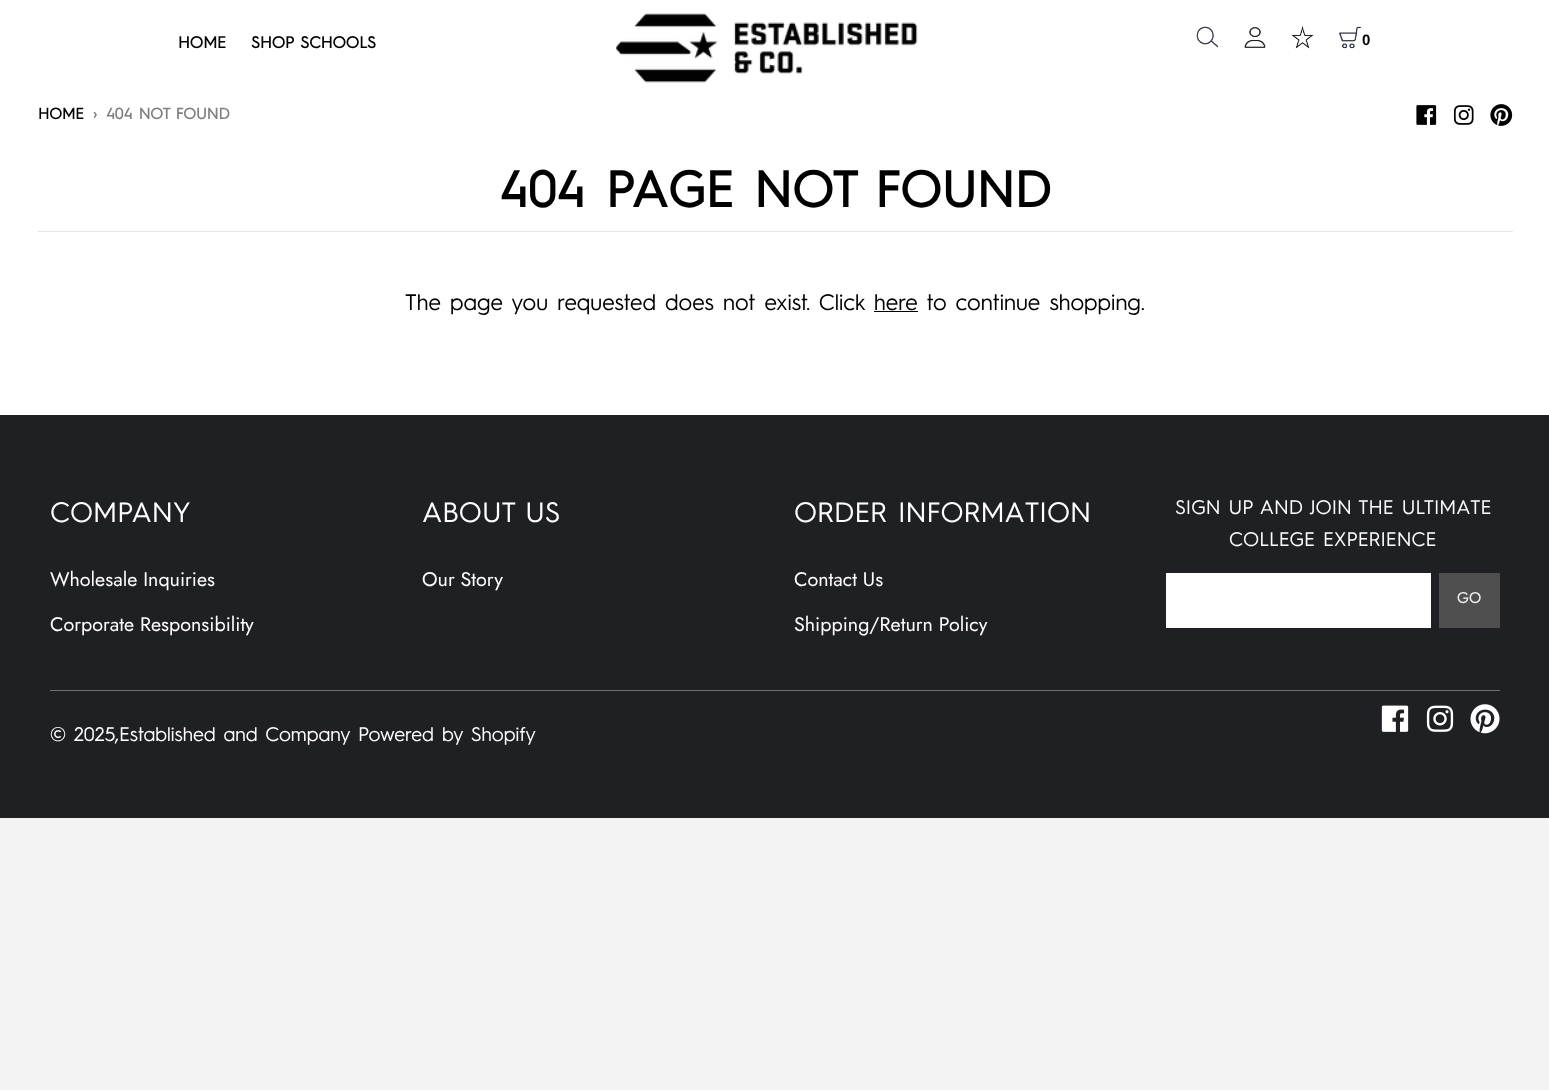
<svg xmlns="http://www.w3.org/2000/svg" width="1549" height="1090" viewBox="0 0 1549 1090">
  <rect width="100%" height="100%" fill="rgb(243,243,243)"/>
  <rect x="0" y="0" width="1549" height="415" fill="rgb(255,255,255)"/>
  <g font-family="'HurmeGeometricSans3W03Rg'" font-size="16.25" font-weight="bold" fill="rgb(0,0,0)">
    <text x="178" y="48">HOME</text>
    <text x="251" y="48">SHOP SCHOOLS</text>
  </g>
  <image x="615" y="13" width="303" height="70" href="pic1.png"/>
  <image x="1196" y="26" width="23" height="22" href="pic2.png"/>
  <image x="1244" y="27" width="22" height="21" href="pic3.png"/>
  <image x="1291" y="26" width="23" height="23" href="pic4.png"/>
  <image x="1338" y="26" width="24" height="23" href="pic5.png"/>
  <text x="1362" y="45" font-family="Liberation Sans" font-size="15" font-weight="bold" fill="rgb(0,0,0)">0</text>
  <text x="38" y="119" font-family="'HurmeGeometricSans3W03Rg'" font-size="15.5" font-weight="bold" fill="rgb(0,0,0)">HOME</text>
  <g font-family="'HurmeGeometricSans3W03Rg'" font-size="15.5" font-weight="bold" fill="rgb(127,127,127)">
    <text x="93" y="119">›</text>
    <text x="106" y="119">404 NOT FOUND</text>
  </g>
  <image x="1416" y="105" width="21" height="20" href="pic6.png"/>
  <image x="1453" y="105" width="21" height="20" href="pic7.png"/>
  <image x="1490" y="104" width="23" height="22" href="pic8.png"/>
  <rect x="38" y="231" width="1475" height="1" fill="rgb(229,229,229)"/>
  <text x="499" y="207" font-family="'HurmeGeometricSans3W03Rg'" font-size="50.6" font-weight="bold" fill="rgb(0,0,0)">404 PAGE NOT FOUND</text>
  <text x="405" y="310" font-family="'HurmeGeometricSans3W03Rg'" font-size="22.5" fill="rgb(0,0,0)">The page you requested does not exist. Click here to continue shopping.</text>
  <rect x="874" y="311" width="44" height="1" fill="rgb(0,0,0)"/>
  <rect x="0" y="415" width="1549" height="403" fill="rgb(31,32,36)"/>
  <text x="50" y="522" font-family="'HurmeGeometricSans3W03Rg'" font-size="28.1" fill="rgb(255,255,255)">COMPANY</text>
  <g font-family="Jost" font-size="19.7" fill="rgb(255,255,255)">
    <text x="50" y="586">Wholesale Inquiries</text>
    <text x="50" y="631">Corporate Responsibility</text>
  </g>
  <text x="422" y="522" font-family="'HurmeGeometricSans3W03Rg'" font-size="28.1" fill="rgb(255,255,255)">ABOUT US</text>
  <text x="422" y="586" font-family="Jost" font-size="19.7" fill="rgb(255,255,255)">Our Story</text>
  <text x="794" y="522" font-family="'HurmeGeometricSans3W03Rg'" font-size="28.1" fill="rgb(255,255,255)">ORDER INFORMATION</text>
  <g font-family="Jost" font-size="19.7" fill="rgb(255,255,255)">
    <text x="794" y="586">Contact Us</text>
    <text x="794" y="631">Shipping/Return Policy</text>
  </g>
  <g font-family="'HurmeGeometricSans3W03Rg'" font-size="19.7" fill="rgb(255,255,255)">
    <text x="1175" y="514">SIGN UP AND JOIN THE ULTIMATE</text>
    <text x="1229" y="546">COLLEGE EXPERIENCE</text>
  </g>
  <rect x="1166" y="573" width="265" height="55" fill="rgb(255,255,255)"/>
  <rect x="1439" y="573" width="61" height="55" fill="rgb(79,79,79)"/>
  <text x="1457" y="603" font-family="Jost" font-size="15.5" fill="rgb(243,243,243)">GO</text>
  <rect x="50" y="690" width="1450" height="1" fill="rgb(113,111,111)"/>
  <image x="1381" y="705" width="28" height="27" href="pic9.png"/>
  <image x="1426" y="705" width="28" height="27" href="pic10.png"/>
  <image x="1470" y="704" width="30" height="30" href="pic11.png"/>
  <text x="50" y="741" font-family="'HurmeGeometricSans3W03Rg'" font-size="19.7" fill="rgb(255,255,255)">© 2025,Established and Company Powered by Shopify</text>
</svg>
